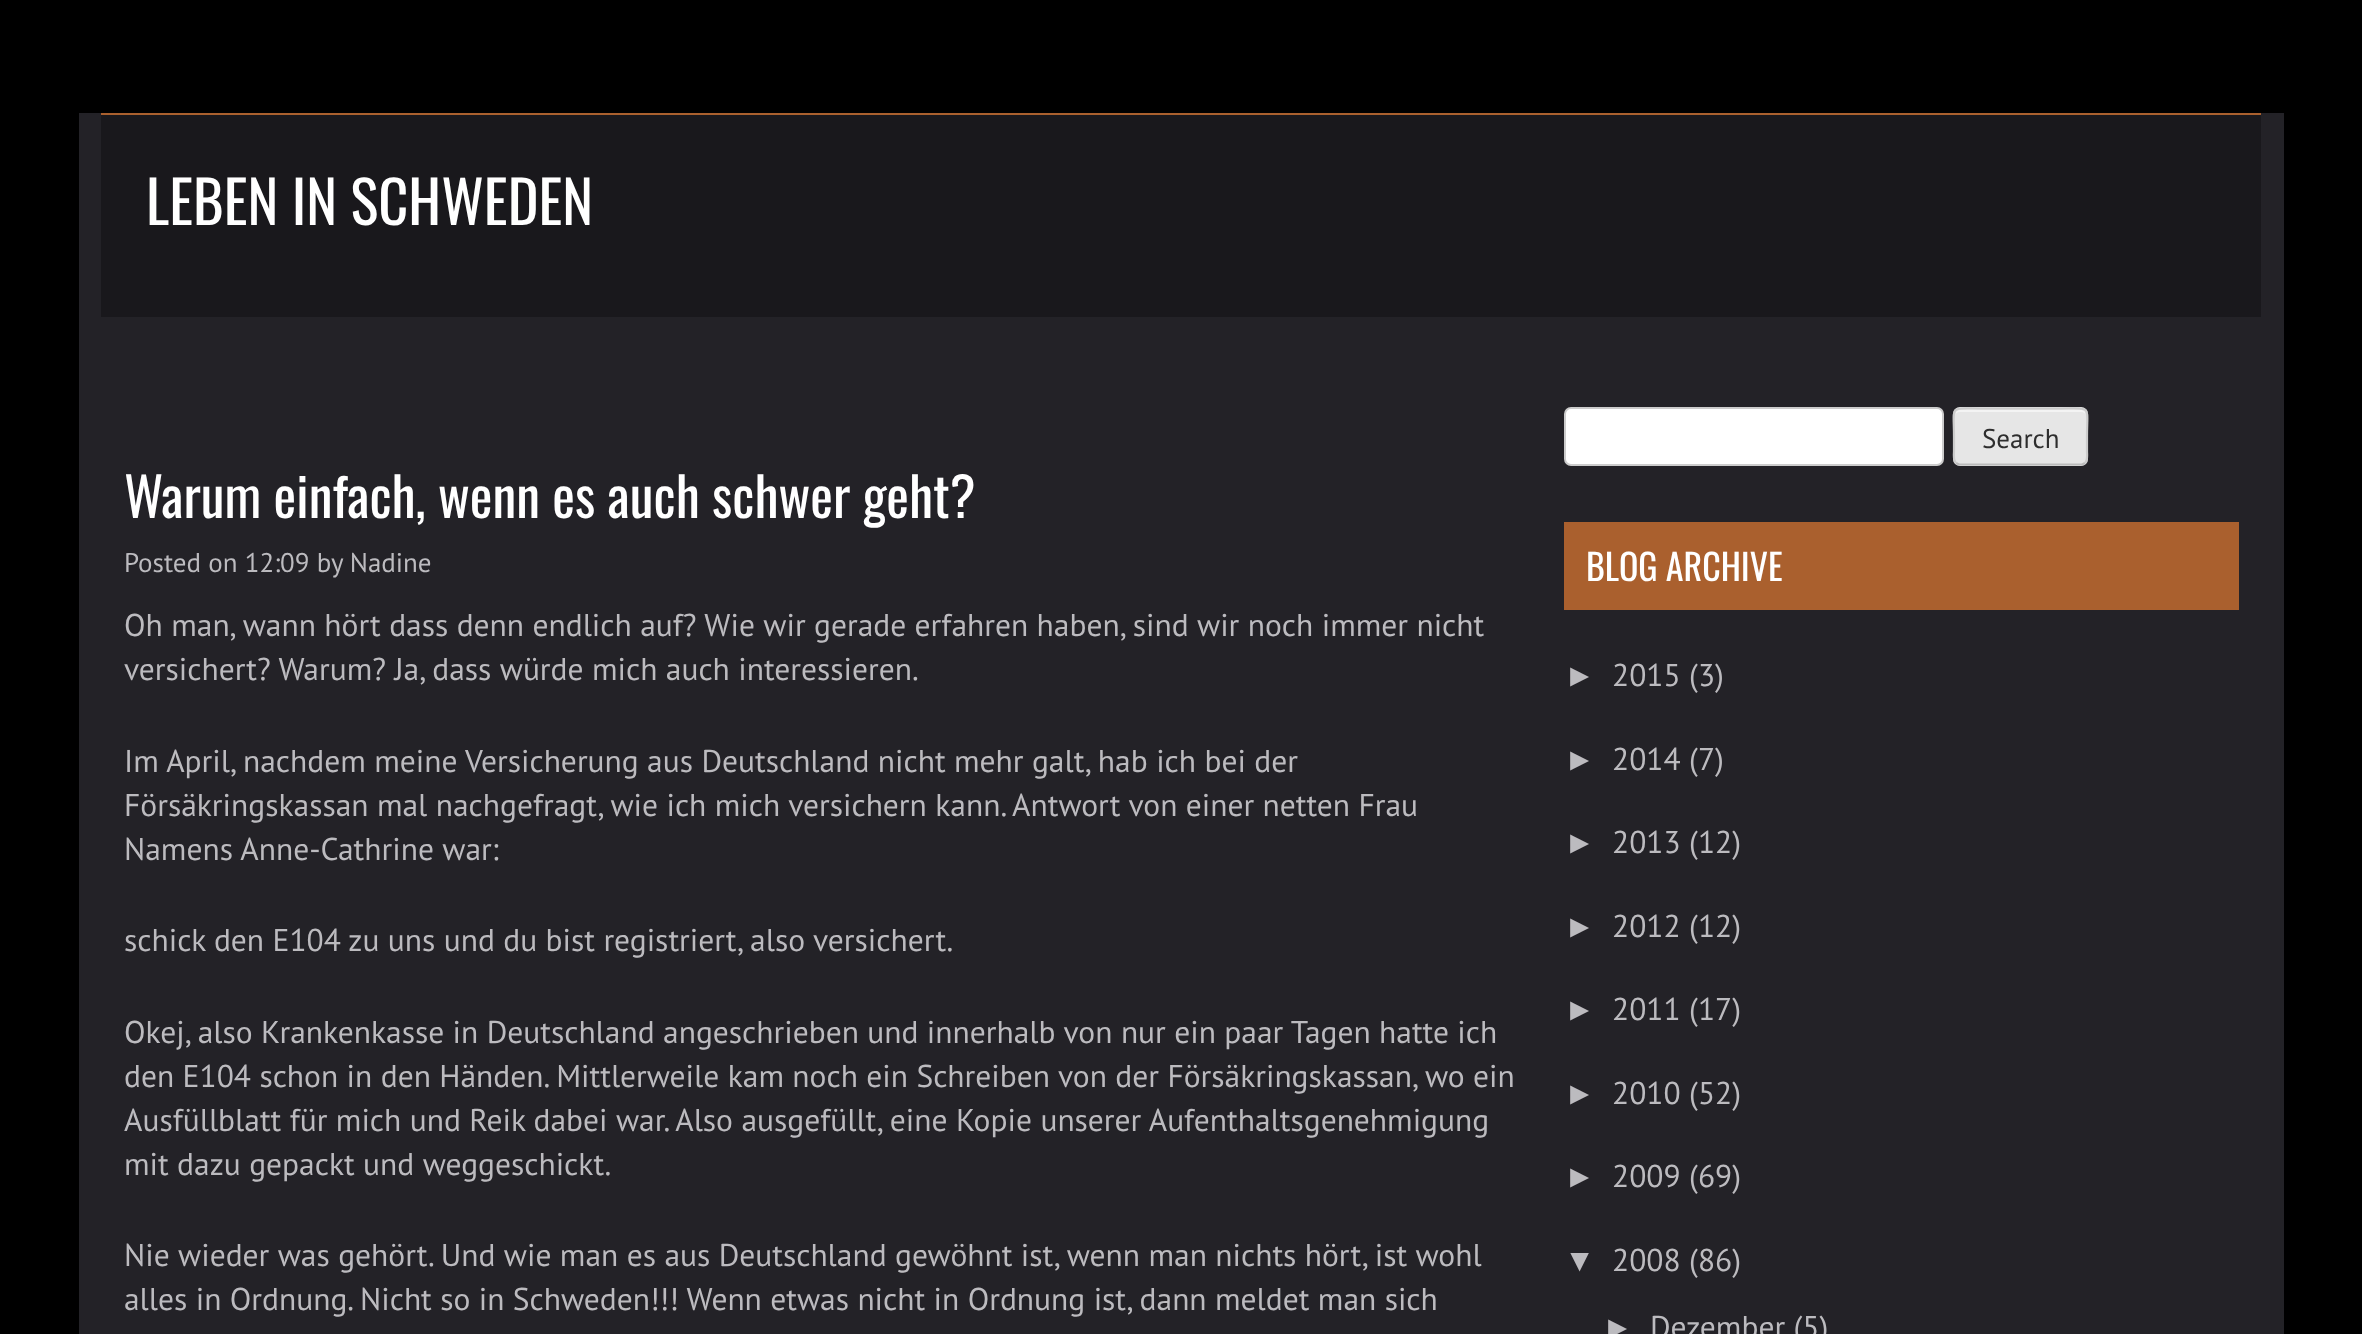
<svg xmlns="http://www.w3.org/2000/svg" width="2362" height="1334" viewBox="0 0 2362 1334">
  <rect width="100%" height="100%" fill="rgb(0,0,0)"/>
  <rect x="79" y="113" width="2205" height="1221" fill="rgb(35,34,39)"/>
  <rect x="101" y="115" width="2160" height="202" fill="rgb(25,24,28)"/>
  <rect x="101" y="113" width="2160" height="2" fill="rgb(170,96,46)"/>
  <text x="146" y="225" font-family="Oswald" font-size="58.5" fill="rgb(255,255,255)">LEBEN IN SCHWEDEN</text>
  <text x="124" y="518" font-family="Oswald" font-size="54" fill="rgb(255,255,255)">Warum einfach, wenn es auch schwer geht?</text>
  <text x="124" y="572" font-family="PT Sans" font-size="27" fill="rgb(188,187,191)">Posted on 12:09 by Nadine</text>
  <g font-family="PT Sans" font-size="31.5" fill="rgb(188,187,191)">
    <text>
      <tspan x="124" y="636">Oh man, wann hört dass denn endlich auf? Wie wir gerade erfahren haben, sind wir noch immer nicht</tspan>
      <tspan x="124" y="680">versichert? Warum? Ja, dass würde mich auch interessieren.</tspan>
    </text>
    <text>
      <tspan x="124" y="772">Im April, nachdem meine Versicherung aus Deutschland nicht mehr galt, hab ich bei der</tspan>
      <tspan x="124" y="816">Försäkringskassan mal nachgefragt, wie ich mich versichern kann. Antwort von einer netten Frau</tspan>
      <tspan x="124" y="860">Namens Anne-Cathrine war:</tspan>
    </text>
    <text x="124" y="951">schick den E104 zu uns und du bist registriert, also versichert.</text>
    <text>
      <tspan x="124" y="1043">Okej, also Krankenkasse in Deutschland angeschrieben und innerhalb von nur ein paar Tagen hatte ich</tspan>
      <tspan x="124" y="1087">den E104 schon in den Händen. Mittlerweile kam noch ein Schreiben von der Försäkringskassan, wo ein</tspan>
      <tspan x="124" y="1131">Ausfüllblatt für mich und Reik dabei war. Also ausgefüllt, eine Kopie unserer Aufenthaltsgenehmigung</tspan>
      <tspan x="124" y="1175">mit dazu gepackt und weggeschickt.</tspan>
    </text>
    <text>
      <tspan x="124" y="1266">Nie wieder was gehört. Und wie man es aus Deutschland gewöhnt ist, wenn man nichts hört, ist wohl</tspan>
      <tspan x="124" y="1310">alles in Ordnung. Nicht so in Schweden!!! Wenn etwas nicht in Ordnung ist, dann meldet man sich</tspan>
    </text>
  </g>
  <rect x="1565" y="408" width="378" height="57" rx="6" fill="rgb(255,255,255)" stroke="rgb(204,204,204)" stroke-width="2"/>
  <rect x="1953" y="407" width="135" height="59" rx="7" fill="rgb(230,230,230)"/>
  <path d="M1960 412H2081C2084 412 2086 414 2086 416C2086 405 2065 410 2061 410H1980C1976 410 1955 405 1955 416C1955 414 1957 412 1960 412Z" fill="rgb(243,243,243)"/>
  <path d="M2085 463L2082 464.5H1959L1956 463" fill="none" stroke="rgb(187,187,187)" stroke-width="2.2"/>
  <path d="M1956 463C1953 460 1954 454.5 1954 451.5V436.5C1954 404.5 1948.5 408.5 1980 408.5H2061C2092.5 408.5 2087 404.5 2087 436.5V451.5C2087 454.5 2088 460 2085 463" fill="none" stroke="rgb(204,204,204)" stroke-width="2.2"/>
  <text x="1982" y="448" font-family="PT Sans" font-size="27" fill="rgb(46,46,46)">Search</text>
  <rect x="1564" y="522" width="675" height="88" fill="rgb(170,96,46)"/>
  <text x="1586" y="581" font-family="Oswald" font-size="36" fill="rgb(255,255,255)">BLOG ARCHIVE</text>
  <text x="1564" y="686" font-family="Liberation Sans" font-size="31.5" fill="rgb(188,187,191)">►</text>
  <text x="1612" y="686" font-family="PT Sans" font-size="31.5" fill="rgb(188,187,191)">2015 (3)</text>
  <text x="1564" y="770" font-family="Liberation Sans" font-size="31.5" fill="rgb(188,187,191)">►</text>
  <text x="1612" y="770" font-family="PT Sans" font-size="31.5" fill="rgb(188,187,191)">2014 (7)</text>
  <text x="1564" y="853" font-family="Liberation Sans" font-size="31.5" fill="rgb(188,187,191)">►</text>
  <text x="1612" y="853" font-family="PT Sans" font-size="31.5" fill="rgb(188,187,191)">2013 (12)</text>
  <text x="1564" y="937" font-family="Liberation Sans" font-size="31.5" fill="rgb(188,187,191)">►</text>
  <text x="1612" y="937" font-family="PT Sans" font-size="31.5" fill="rgb(188,187,191)">2012 (12)</text>
  <text x="1564" y="1020" font-family="Liberation Sans" font-size="31.5" fill="rgb(188,187,191)">►</text>
  <text x="1612" y="1020" font-family="PT Sans" font-size="31.5" fill="rgb(188,187,191)">2011 (17)</text>
  <text x="1564" y="1104" font-family="Liberation Sans" font-size="31.5" fill="rgb(188,187,191)">►</text>
  <text x="1612" y="1104" font-family="PT Sans" font-size="31.5" fill="rgb(188,187,191)">2010 (52)</text>
  <text x="1564" y="1187" font-family="Liberation Sans" font-size="31.5" fill="rgb(188,187,191)">►</text>
  <text x="1612" y="1187" font-family="PT Sans" font-size="31.5" fill="rgb(188,187,191)">2009 (69)</text>
  <text x="1564" y="1271" font-family="Liberation Sans" font-size="31.5" fill="rgb(188,187,191)">▼</text>
  <text x="1612" y="1271" font-family="PT Sans" font-size="31.5" fill="rgb(188,187,191)">2008 (86)</text>
  <text x="1602" y="1338" font-family="Liberation Sans" font-size="31.5" fill="rgb(188,187,191)">►</text>
  <text x="1650" y="1338" font-family="PT Sans" font-size="31.5" fill="rgb(188,187,191)">Dezember (5)</text>
</svg>
